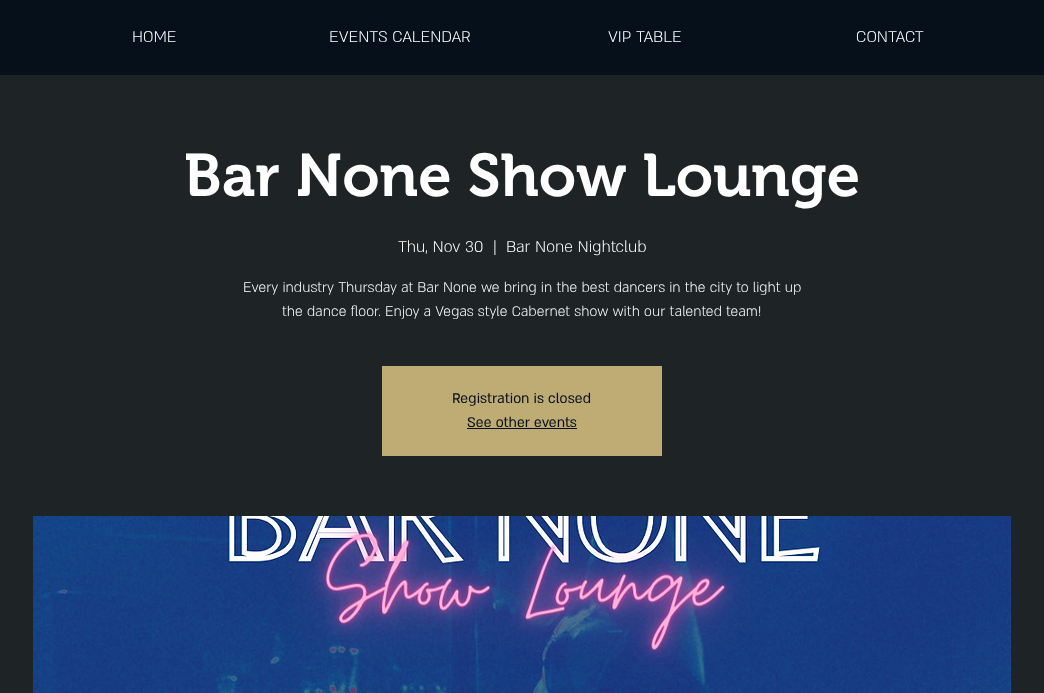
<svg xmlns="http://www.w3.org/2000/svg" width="1044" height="693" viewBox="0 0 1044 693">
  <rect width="100%" height="100%" fill="rgb(6,16,27)"/>
  <g font-family="'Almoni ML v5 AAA'" font-size="18" font-weight="300" fill="rgb(255,255,255)">
    <text x="132" y="42">HOME</text>
    <text x="329" y="42">EVENTS CALENDAR</text>
    <text x="608" y="42">VIP TABLE</text>
    <text x="856" y="42">CONTACT</text>
  </g>
  <rect x="0" y="75" width="1044" height="618" fill="rgb(30,36,37)"/>
  <text x="184" y="196" font-family="'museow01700'" font-size="60" font-weight="600" fill="rgb(255,255,255)">Bar None Show Lounge</text>
  <g font-family="'Almoni ML v5 AAA'" font-size="18" font-weight="300" fill="rgb(255,255,255)">
    <text x="398" y="252">Thu, Nov 30</text>
    <text x="493" y="252">|</text>
    <text x="506" y="252">Bar None Nightclub</text>
  </g>
  <g font-family="'Almoni ML v5 AAA'" font-size="16" font-weight="300" fill="rgb(255,255,255)">
    <text x="243" y="292">Every industry Thursday at Bar None we bring in the best dancers in the city to light up</text>
    <text x="282" y="316">the dance floor. Enjoy a Vegas style Cabernet show with our talented team!</text>
  </g>
  <rect x="382" y="366" width="280" height="90" fill="rgb(190,172,116)"/>
  <g font-family="'Almoni ML v5 AAA'" font-size="16" fill="rgb(6,16,27)">
    <text x="452" y="403">Registration is closed</text>
    <text x="467" y="427">See other events</text>
  </g>
  <rect x="467" y="428" width="110" height="1" fill="rgb(6,16,27)"/>
  <image x="33" y="516" width="979" height="177" href="pic1.png"/>
</svg>
